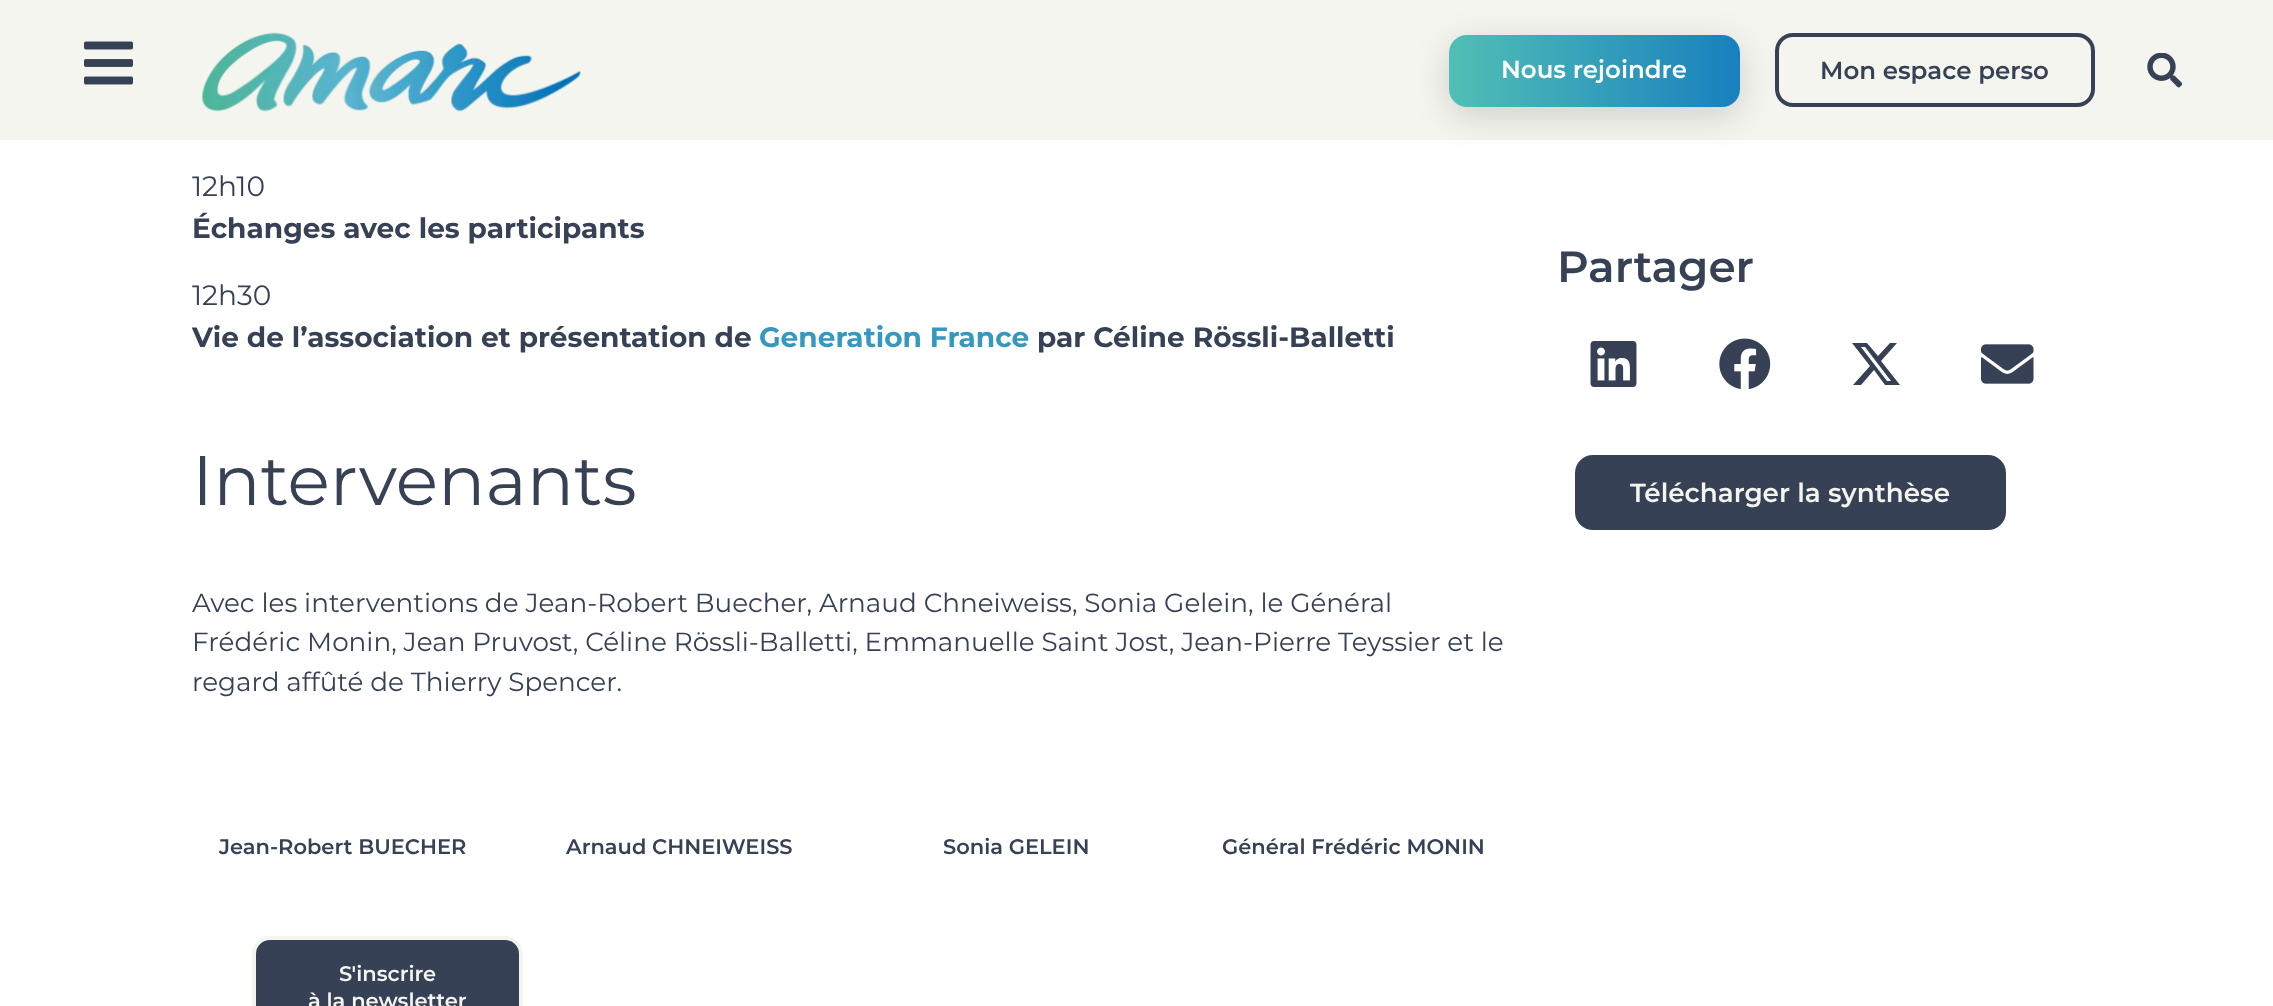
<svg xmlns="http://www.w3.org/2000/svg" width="2273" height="1006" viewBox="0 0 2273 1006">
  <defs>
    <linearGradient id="g1" gradientUnits="userSpaceOnUse" x1="1449" y1="71" x2="2030" y2="71"><stop offset="0" stop-color="rgb(81,191,181)"/><stop offset="0.51" stop-color="rgb(23,127,191)"/><stop offset="1" stop-color="rgb(81,191,181)"/></linearGradient>
  </defs>
  <rect width="100%" height="100%" fill="rgb(255,255,255)"/>
  <rect x="0" y="0" width="2273" height="140" fill="rgb(245,245,239)"/>
  <image x="84" y="41" width="49" height="44" href="pic1.png"/>
  <image x="201" y="32" width="380" height="80" href="pic2.png"/>
  <rect x="1449" y="44" width="291" height="72" rx="18" fill="rgba(0,0,0,0.15)" filter="blur(17.5px)"/>
  <rect x="1449" y="35" width="291" height="72" rx="18" fill="url(#g1)"/>
  <text x="1501" y="78" font-family="Montserrat" font-size="24.5" font-weight="600" fill="rgb(255,255,255)">Nous rejoindre</text>
  <rect x="1777" y="35" width="316" height="70" rx="16" fill="none" stroke="rgb(55,65,85)" stroke-width="4"/>
  <text x="1820" y="79" font-family="Montserrat" font-size="24.5" font-weight="600" fill="rgb(55,65,85)">Mon espace perso</text>
  <image x="2147" y="53" width="35" height="35" href="pic3.png"/>
  <rect x="254" y="938" width="267" height="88" rx="16" fill="rgb(55,65,85)" stroke="rgb(245,245,239)" stroke-width="4"/>
  <g font-family="Montserrat" font-size="21" font-weight="600" fill="rgb(245,245,239)">
    <text x="339" y="981">S'inscrire</text>
    <text x="308" y="1008">à la newsletter</text>
  </g>
  <text x="192" y="196" font-family="Montserrat" font-size="28" fill="rgb(55,65,85)">12h10</text>
  <text x="192" y="238" font-family="Montserrat" font-size="28" font-weight="bold" fill="rgb(55,65,85)">Échanges avec les participants</text>
  <text x="192" y="305" font-family="Montserrat" font-size="28" fill="rgb(55,65,85)">12h30</text>
  <text x="192" y="347" font-family="Montserrat" font-size="28" font-weight="bold" fill="rgb(55,65,85)">Vie de l’association et présentation de</text>
  <text x="759" y="347" font-family="Montserrat" font-size="28" font-weight="bold" fill="rgb(52,152,191)">Generation France</text>
  <text x="1037" y="347" font-family="Montserrat" font-size="28" font-weight="bold" fill="rgb(55,65,85)">par Céline Rössli-Balletti</text>
  <text x="192" y="505" font-family="Montserrat" font-size="70" fill="rgb(55,65,85)">Intervenants</text>
  <g font-family="Montserrat" font-size="26.25" fill="rgb(55,65,85)">
    <text>
      <tspan x="192" y="612">Avec les interventions de Jean-Robert Buecher, Arnaud Chneiweiss, Sonia Gelein, le Général</tspan>
      <tspan x="192" y="651">Frédéric Monin, Jean Pruvost, Céline Rössli-Balletti, Emmanuelle Saint Jost, Jean-Pierre Teyssier et le</tspan>
      <tspan x="192" y="691">regard affûté de Thierry Spencer.</tspan>
    </text>
  </g>
  <g font-family="Montserrat" font-size="21" font-weight="600" fill="rgb(55,65,85)">
    <text x="219" y="854">Jean-Robert BUECHER</text>
    <text x="566" y="854">Arnaud CHNEIWEISS</text>
    <text x="943" y="854">Sonia GELEIN</text>
    <text x="1222" y="854">Général Frédéric MONIN</text>
  </g>
  <text x="1557" y="282" font-family="Montserrat" font-size="43.75" font-weight="600" fill="rgb(55,65,85)">Partager</text>
  <image x="1590" y="341" width="47" height="46" href="pic4.png"/>
  <image x="1719" y="338" width="52" height="52" href="pic5.png"/>
  <path d="M1890 343H1897L1881 361L1900 385H1885L1874 370L1861 385H1853L1870 366L1852 343H1867L1878 356ZM1887 381H1891L1865 347H1861Z" fill="rgb(55,65,85)"/>
  <image x="1981" y="344" width="53" height="40" href="pic6.png"/>
  <rect x="1577" y="457" width="427" height="71" rx="16" fill="rgb(55,65,85)" stroke="rgb(55,65,85)" stroke-width="4"/>
  <text x="1630" y="502" font-family="Montserrat" font-size="26.25" font-weight="600" fill="rgb(245,245,239)">Télécharger la synthèse</text>
</svg>
